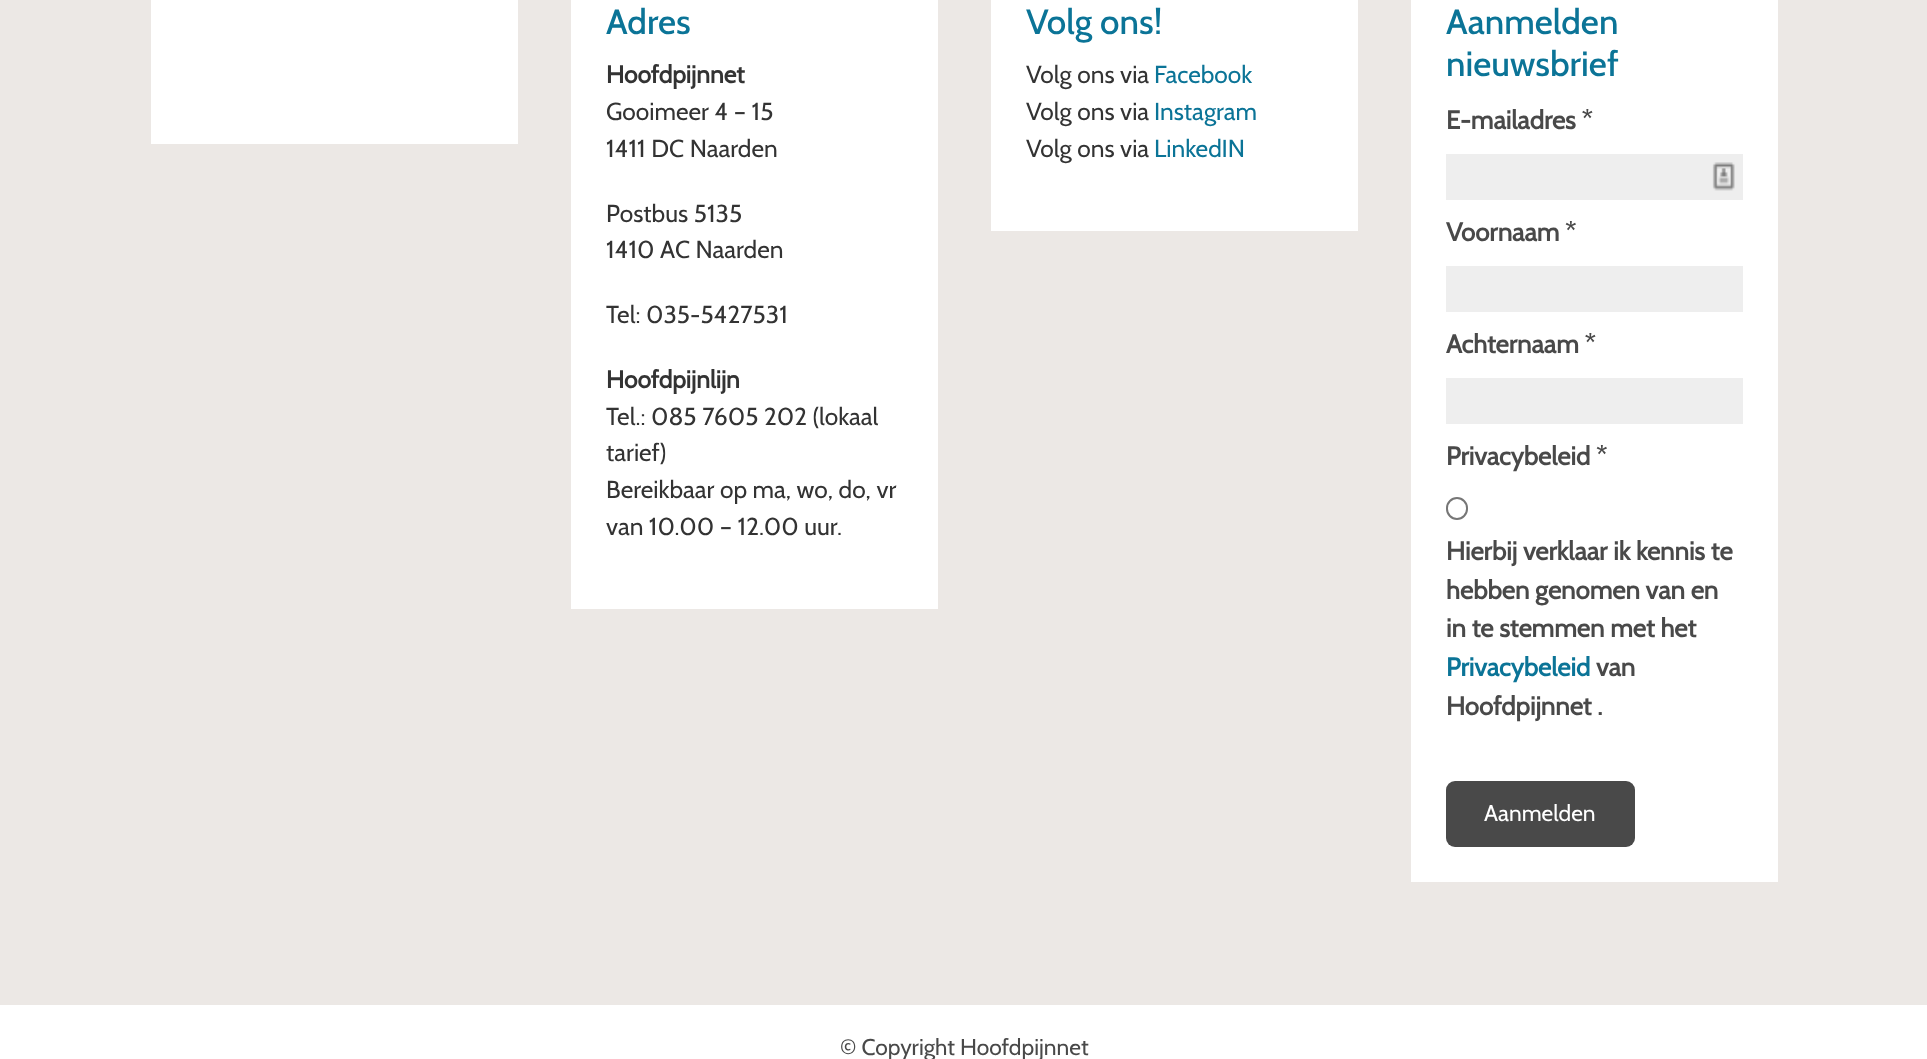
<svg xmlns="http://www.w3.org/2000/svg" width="1927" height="1059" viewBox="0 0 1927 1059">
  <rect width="100%" height="100%" fill="rgb(255,255,255)"/>
  <rect x="0" y="0" width="1927" height="1005" fill="rgb(236,232,229)"/>
  <rect x="151" y="0" width="367" height="144" fill="rgb(255,255,255)"/>
  <rect x="571" y="0" width="367" height="609" fill="rgb(255,255,255)"/>
  <text x="606" y="34" font-family="Cabin" font-size="35" font-weight="500" fill="rgb(11,116,151)">Adres</text>
  <text x="606" y="83" font-family="Cabin" font-size="24.5" font-weight="bold" fill="rgb(51,51,51)">Hoofdpijnnet</text>
  <g font-family="Cabin" font-size="24.5" fill="rgb(51,51,51)">
    <text>
      <tspan x="606" y="120">Gooimeer 4 – 15</tspan>
      <tspan x="606" y="157">1411 DC Naarden</tspan>
    </text>
    <text>
      <tspan x="606" y="222">Postbus 5135</tspan>
      <tspan x="606" y="258">1410 AC Naarden</tspan>
    </text>
    <text x="606" y="323">Tel: 035-5427531</text>
  </g>
  <text x="606" y="388" font-family="Cabin" font-size="24.5" font-weight="bold" fill="rgb(51,51,51)">Hoofdpijnlijn</text>
  <g font-family="Cabin" font-size="24.5" fill="rgb(51,51,51)">
    <text>
      <tspan x="606" y="425">Tel.: 085 7605 202 (lokaal</tspan>
      <tspan x="606" y="461">tarief)</tspan>
      <tspan x="606" y="498">Bereikbaar op ma, wo, do, vr</tspan>
      <tspan x="606" y="535">van 10.00 – 12.00 uur.</tspan>
    </text>
  </g>
  <rect x="991" y="0" width="367" height="231" fill="rgb(255,255,255)"/>
  <text x="1026" y="34" font-family="Cabin" font-size="35" font-weight="500" fill="rgb(11,116,151)">Volg ons!</text>
  <text x="1026" y="83" font-family="Cabin" font-size="24.5" fill="rgb(51,51,51)">Volg ons via</text>
  <text x="1154" y="83" font-family="Cabin" font-size="24.5" fill="rgb(11,116,151)">Facebook</text>
  <text x="1026" y="120" font-family="Cabin" font-size="24.5" fill="rgb(51,51,51)">Volg ons via</text>
  <text x="1154" y="120" font-family="Cabin" font-size="24.5" fill="rgb(11,116,151)">Instagram</text>
  <text x="1026" y="157" font-family="Cabin" font-size="24.5" fill="rgb(51,51,51)">Volg ons via</text>
  <text x="1154" y="157" font-family="Cabin" font-size="24.5" fill="rgb(11,116,151)">LinkedIN</text>
  <rect x="1411" y="0" width="367" height="882" fill="rgb(255,255,255)"/>
  <g font-family="Cabin" font-size="35" font-weight="500" fill="rgb(11,116,151)">
    <text>
      <tspan x="1446" y="34">Aanmelden</tspan>
      <tspan x="1446" y="76">nieuwsbrief</tspan>
    </text>
  </g>
  <text x="1446" y="129" font-family="Cabin" font-size="25.75" font-weight="bold" fill="rgb(73,73,73)">E-mailadres *</text>
  <rect x="1446" y="154" width="297" height="46" fill="rgb(238,238,238)"/>
  <image x="1712" y="162" width="23" height="29" href="pic1.png"/>
  <text x="1446" y="241" font-family="Cabin" font-size="25.75" font-weight="bold" fill="rgb(73,73,73)">Voornaam *</text>
  <rect x="1446" y="266" width="297" height="46" fill="rgb(238,238,238)"/>
  <text x="1446" y="353" font-family="Cabin" font-size="25.75" font-weight="bold" fill="rgb(73,73,73)">Achternaam *</text>
  <rect x="1446" y="378" width="297" height="46" fill="rgb(238,238,238)"/>
  <text x="1446" y="465" font-family="Cabin" font-size="25.75" font-weight="bold" fill="rgb(73,73,73)">Privacybeleid *</text>
  <rect x="1447" y="498" width="20" height="21" rx="10" fill="none" stroke="rgb(118,118,118)" stroke-width="2"/>
  <g font-family="Cabin" font-size="25.75" font-weight="bold" fill="rgb(73,73,73)">
    <text>
      <tspan x="1446" y="560">Hierbij verklaar ik kennis te</tspan>
      <tspan x="1446" y="599">hebben genomen van en</tspan>
      <tspan x="1446" y="637">in te stemmen met het</tspan>
    </text>
  </g>
  <text x="1446" y="676" font-family="Cabin" font-size="25.75" font-weight="bold" fill="rgb(11,116,151)">Privacybeleid</text>
  <g font-family="Cabin" font-size="25.75" font-weight="bold" fill="rgb(73,73,73)">
    <text x="1596" y="676">van</text>
    <text x="1446" y="715">Hoofdpijnnet .</text>
  </g>
  <rect x="1446" y="781" width="189" height="66" rx="9" fill="rgb(73,73,73)"/>
  <text x="1484" y="821" font-family="Cabin" font-size="22.75" fill="rgb(255,255,255)">Aanmelden</text>
  <text x="840" y="1055" font-family="Cabin" font-size="22.75" fill="rgb(73,73,73)">© Copyright Hoofdpijnnet</text>
</svg>
